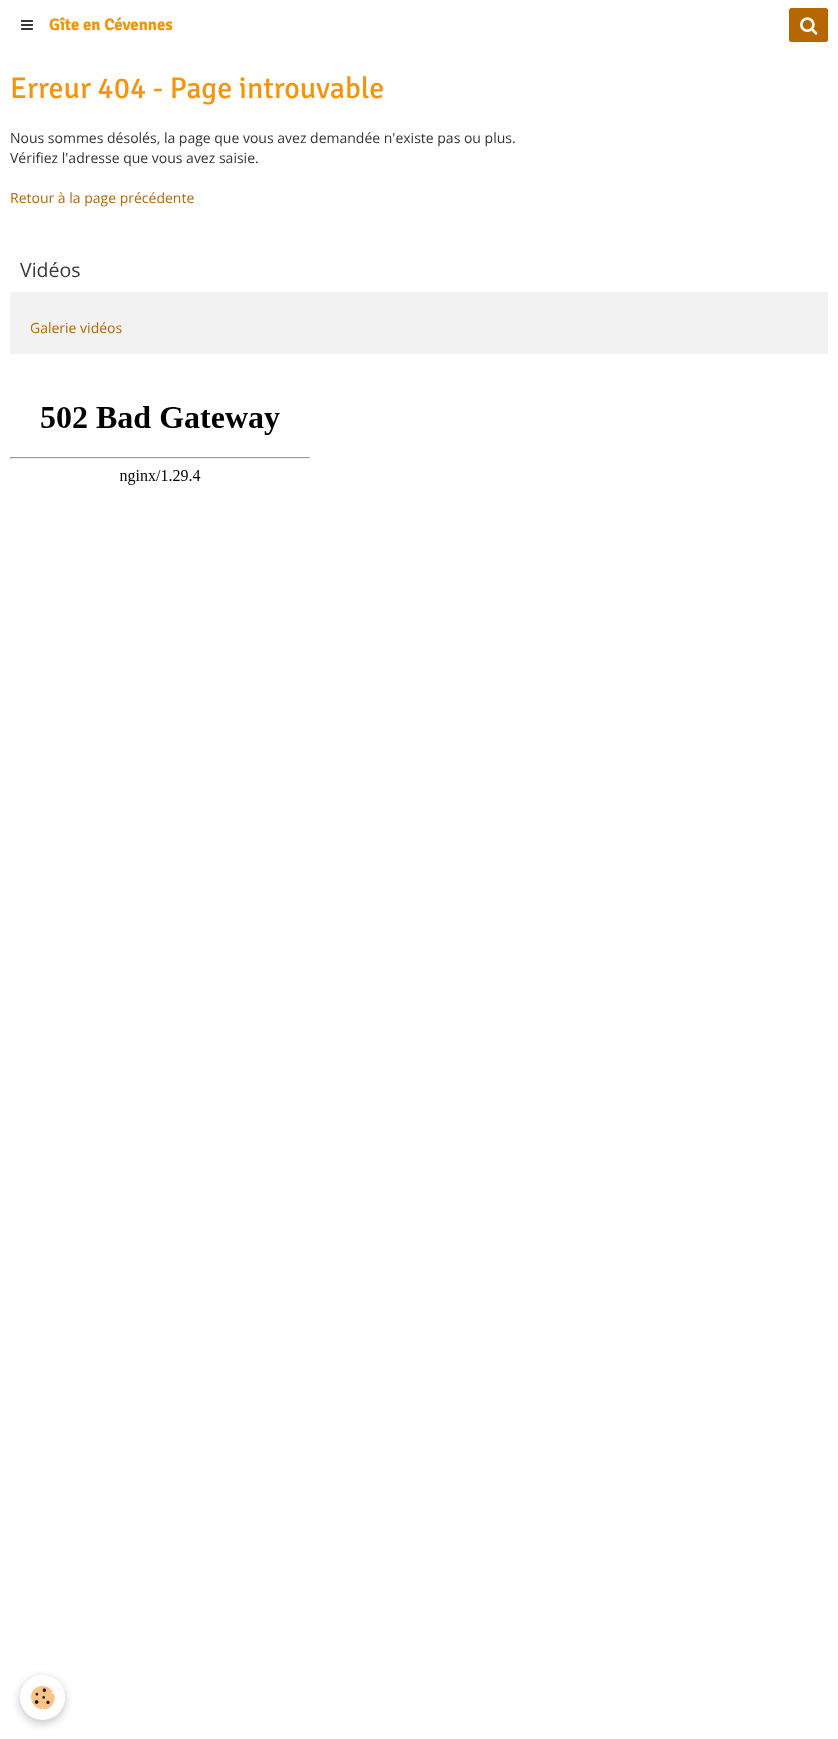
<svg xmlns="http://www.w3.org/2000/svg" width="838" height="1739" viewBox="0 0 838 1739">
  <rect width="100%" height="100%" fill="rgb(255,255,255)"/>
  <image x="21" y="20" width="12" height="10" href="pic1.png"/>
  <text x="49" y="30" font-family="Signika" font-size="16.75" font-weight="bold" fill="rgb(245,148,10)">Gîte en Cévennes</text>
  <rect x="789" y="8" width="39" height="34" rx="2.5" fill="rgb(182,103,0)"/>
  <image x="800" y="17" width="18" height="18" href="pic2.png"/>
  <text x="10" y="98" font-family="Signika" font-size="30" fill="rgb(245,148,10)">Erreur 404 - Page introuvable</text>
  <g font-family="Open Sans" font-size="14" fill="rgb(52,52,52)">
    <text>
      <tspan x="10" y="143">Nous sommes désolés, la page que vous avez demandée n'existe pas ou plus.</tspan>
      <tspan x="10" y="163">Vérifiez l'adresse que vous avez saisie.</tspan>
    </text>
  </g>
  <text x="10" y="203" font-family="Open Sans" font-size="14" fill="rgb(182,103,0)">Retour à la page précédente</text>
  <rect x="10" y="292" width="818" height="62" fill="rgb(242,242,242)"/>
  <text x="20" y="277" font-family="Open Sans" font-size="19.5" fill="rgb(58,53,60)">Vidéos</text>
  <text x="30" y="333" font-family="Open Sans" font-size="14" fill="rgb(182,103,0)">Galerie vidéos</text>
  <image x="10" y="406" width="300" height="79" href="pic3.png"/>
  <rect x="20" y="1678" width="45" height="45" rx="22.5" fill="rgba(0,0,0,0.24)" filter="blur(5px)"/>
  <circle cx="42.5" cy="1697.5" r="22.5" fill="rgb(255,255,255)"/>
  <image x="30" y="1685" width="25" height="25" href="pic4.png"/>
</svg>
